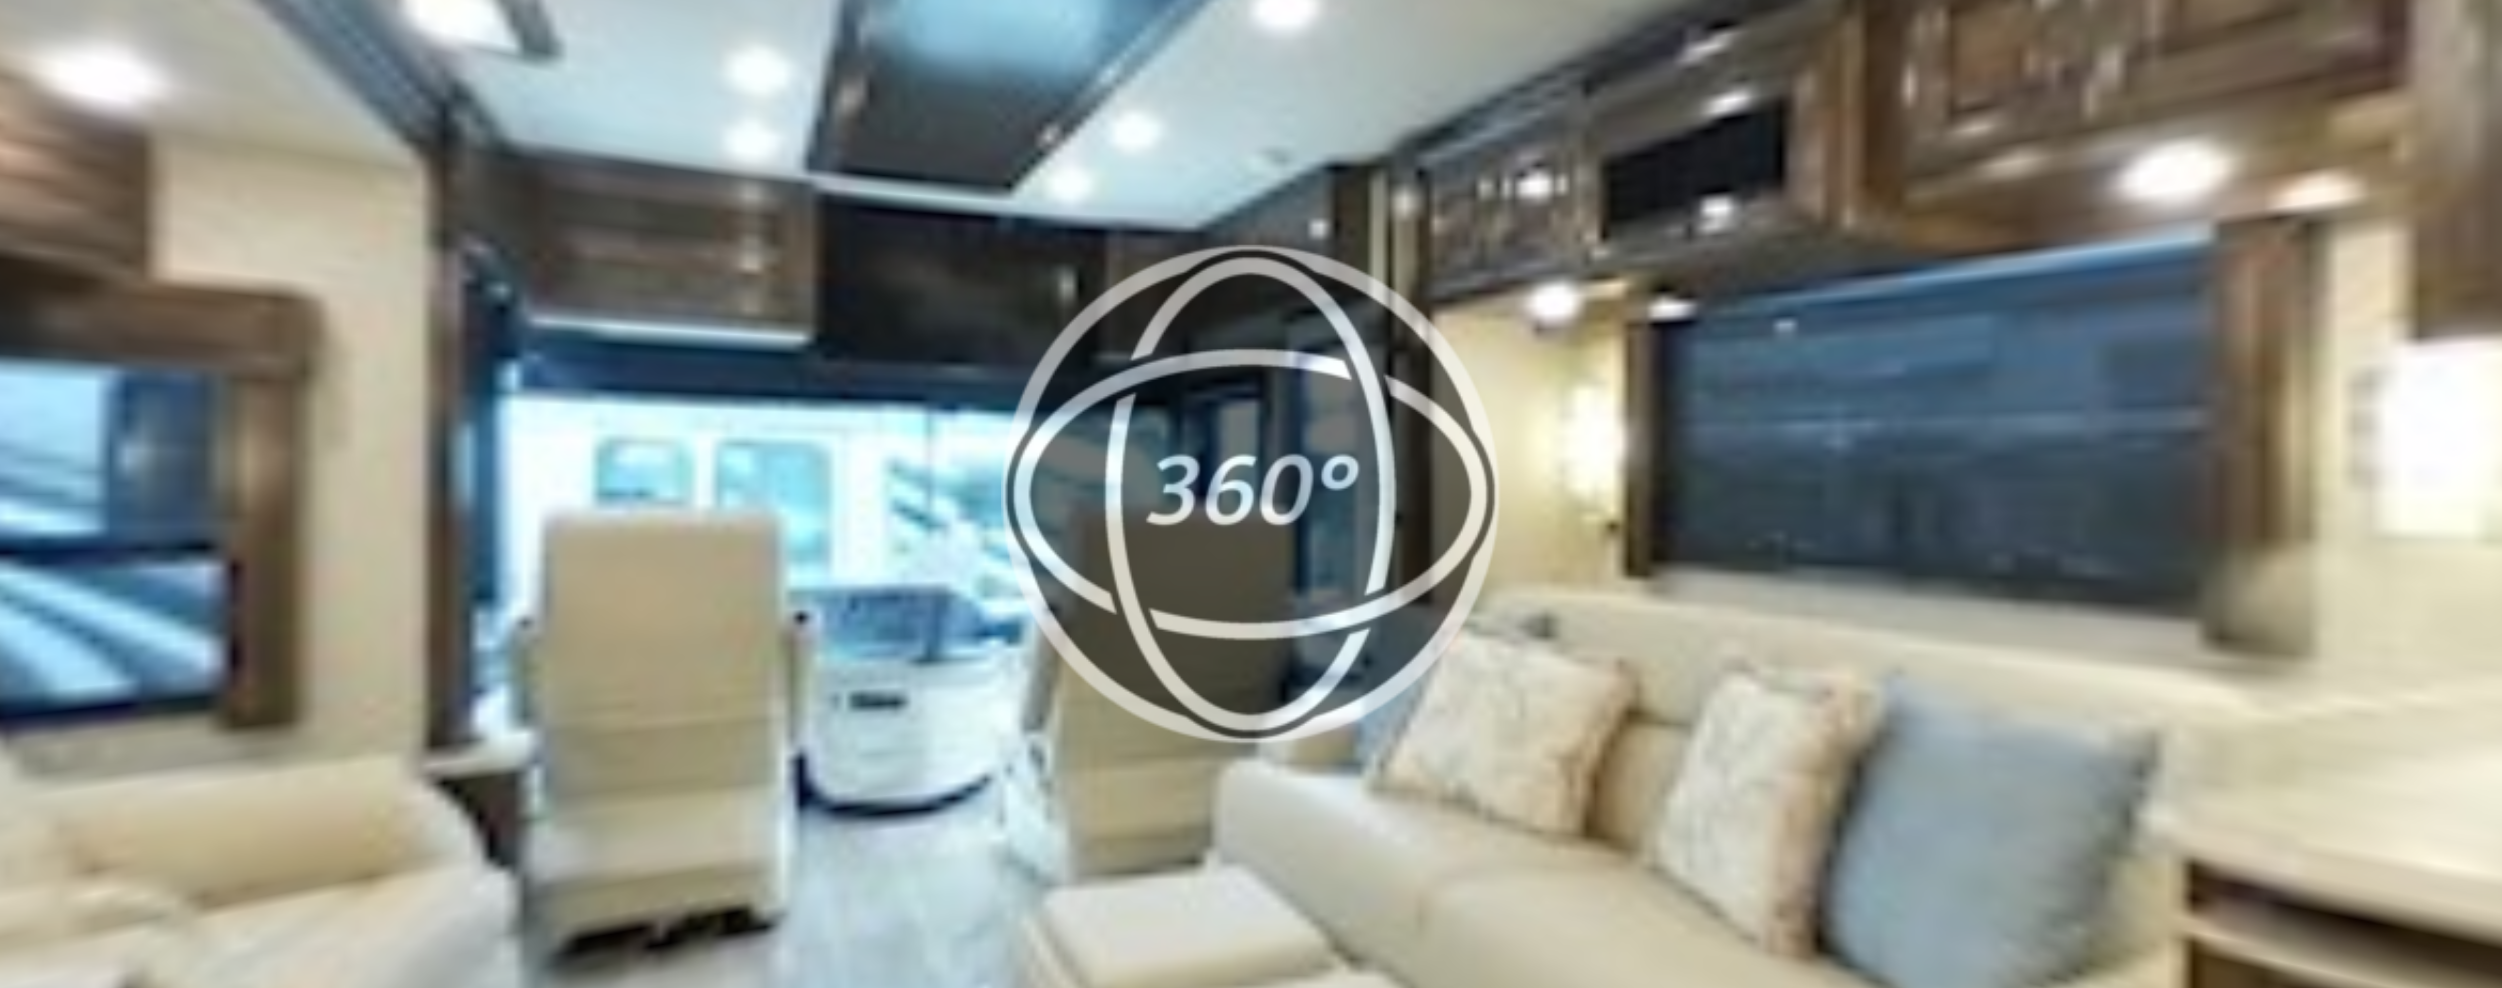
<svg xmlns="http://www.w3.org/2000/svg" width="2502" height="988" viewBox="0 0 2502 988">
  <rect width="100%" height="100%" fill="rgb(255,255,255)"/>
  <image x="0" y="0" width="2502" height="988" href="pic1.png"/>
  <image x="1001" y="244" width="500" height="501" href="pic2.png"/>
</svg>
